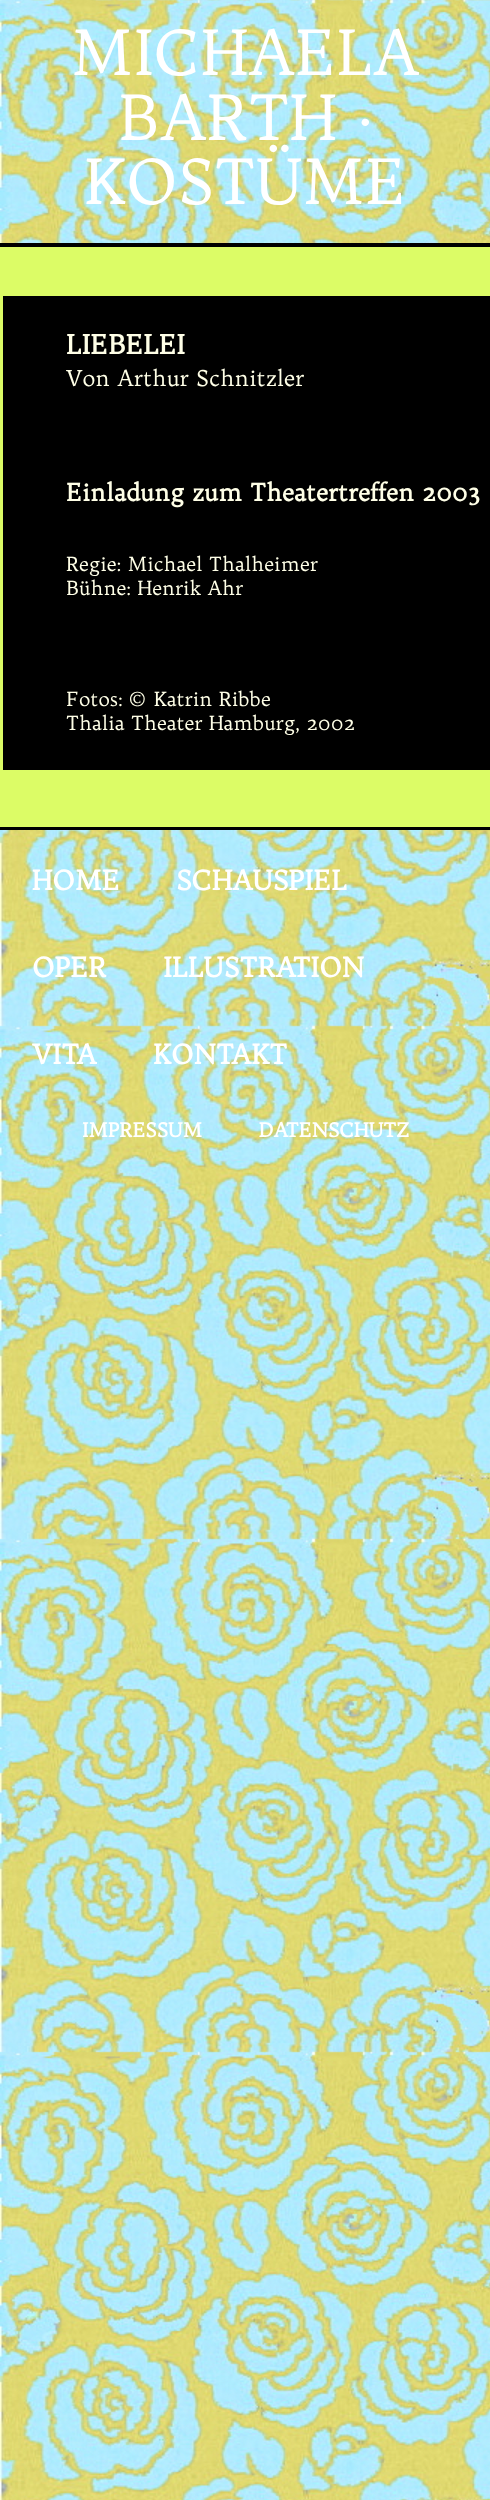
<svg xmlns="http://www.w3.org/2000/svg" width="490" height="2500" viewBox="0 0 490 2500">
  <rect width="100%" height="100%" fill="rgb(255,255,255)"/>
  <image x="0" y="0" width="490" height="2500" href="pic1.png"/>
  <rect x="0" y="243" width="490" height="4" fill="rgb(0,0,0)"/>
  <g font-family="Trykker" font-size="62.5" fill="rgb(255,255,255)">
    <text x="71" y="75">MICHAELA</text>
    <text x="118" y="140">BARTH ·</text>
    <text x="84" y="204">KOSTÜME</text>
  </g>
  <rect x="0" y="247" width="490" height="580" fill="rgb(220,252,102)"/>
  <rect x="0" y="827" width="490" height="3" fill="rgb(0,0,0)"/>
  <rect x="3" y="296" width="487" height="474" fill="rgb(0,0,0)"/>
  <text x="66" y="354" font-family="Trykker" font-size="26.5" font-weight="bold" fill="rgb(255,255,231)">LIEBELEI</text>
  <text x="66" y="386" font-family="Trykker" font-size="22" fill="rgb(255,255,231)">Von Arthur Schnitzler</text>
  <text x="66" y="501" font-family="Trykker" font-size="24" font-weight="bold" fill="rgb(255,255,231)">Einladung zum Theatertreffen 2003</text>
  <g font-family="Trykker" font-size="19.5" fill="rgb(255,255,231)">
    <text>
      <tspan x="66" y="571">Regie: Michael Thalheimer</tspan>
      <tspan x="66" y="595">Bühne: Henrik Ahr</tspan>
    </text>
    <text>
      <tspan x="66" y="706">Fotos: © Katrin Ribbe</tspan>
      <tspan x="66" y="730">Thalia Theater Hamburg, 2002</tspan>
    </text>
  </g>
  <g font-family="Trykker" font-size="27" font-weight="bold" fill="rgb(255,255,255)">
    <text x="32" y="890">HOME</text>
    <text x="176" y="890">SCHAUSPIEL</text>
    <text x="32" y="977">OPER</text>
    <text x="163" y="977">ILLUSTRATION</text>
    <text x="32" y="1064">VITA</text>
    <text x="153" y="1064">KONTAKT</text>
  </g>
  <g font-family="Trykker" font-size="19.5" font-weight="bold" fill="rgb(255,255,255)">
    <text x="82" y="1137">IMPRESSUM</text>
    <text x="259" y="1137">DATENSCHUTZ</text>
  </g>
</svg>
